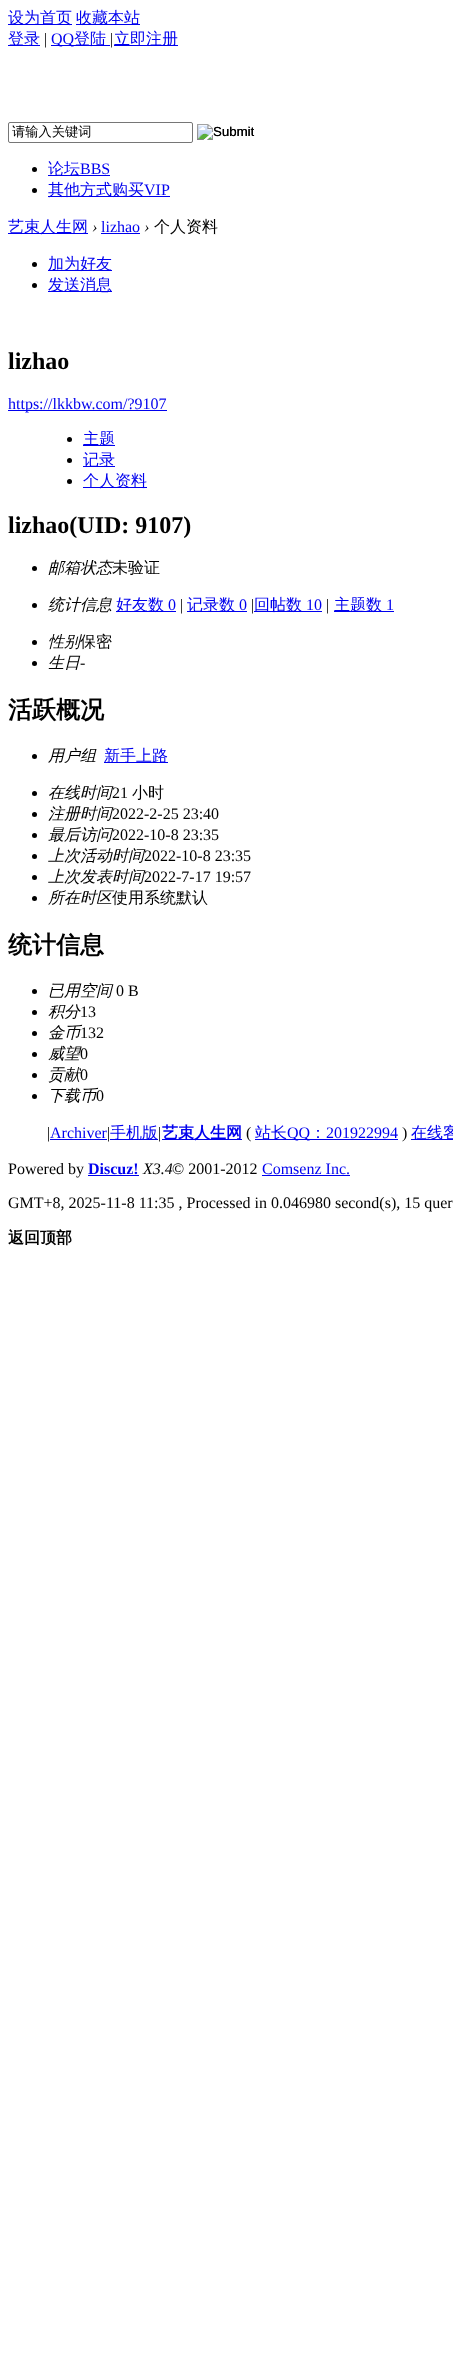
<svg xmlns="http://www.w3.org/2000/svg" width="453" height="2360" viewBox="0 0 453 2360">
  <rect width="100%" height="100%" fill="rgb(255,255,255)"/>
  <rect x="8" y="24" width="64" height="1" fill="rgb(0,0,238)"/>
  <text x="8" y="23" font-family="WenQuanYi Zen Hei" font-size="16" font-weight="500" fill="rgb(0,0,238)">设为首页</text>
  <rect x="76" y="24" width="64" height="1" fill="rgb(0,0,238)"/>
  <text x="76" y="23" font-family="WenQuanYi Zen Hei" font-size="16" font-weight="500" fill="rgb(0,0,238)">收藏本站</text>
  <rect x="8" y="45" width="32" height="1" fill="rgb(0,0,238)"/>
  <text x="8" y="44" font-family="WenQuanYi Zen Hei" font-size="16" font-weight="500" fill="rgb(0,0,238)">登录</text>
  <text x="44" y="44" font-family="Liberation Serif" font-size="16" fill="rgb(0,0,0)">|</text>
  <rect x="51" y="45" width="59" height="1" fill="rgb(0,0,238)"/>
  <text x="51" y="44" font-family="Liberation Serif" font-size="16" fill="rgb(0,0,238)">QQ</text>
  <text x="74" y="44" font-family="WenQuanYi Zen Hei" font-size="16" font-weight="500" fill="rgb(0,0,238)">登陆</text>
  <text x="110" y="44" font-family="Liberation Serif" font-size="16" fill="rgb(0,0,0)">|</text>
  <rect x="114" y="45" width="64" height="1" fill="rgb(0,0,238)"/>
  <text x="114" y="44" font-family="WenQuanYi Zen Hei" font-size="16" font-weight="500" fill="rgb(0,0,238)">立即注册</text>
  <rect x="8.5" y="122.5" width="184" height="20" rx="1.5" fill="none" stroke="rgb(118,118,118)"/>
  <text x="12" y="136" font-family="WenQuanYi Zen Hei" font-size="13.25" font-weight="500" fill="rgb(0,0,0)">请输入关键词</text>
  <image x="197" y="124" width="57" height="16" href="pic1.png"/>
  <text x="213" y="136" font-family="Liberation Sans" font-size="13.25" fill="rgb(0,0,0)">Submit</text>
  <circle cx="34.5" cy="169.5" r="2.5" fill="rgb(0,0,0)"/>
  <rect x="48" y="175" width="62" height="1" fill="rgb(0,0,238)"/>
  <text x="48" y="174" font-family="WenQuanYi Zen Hei" font-size="16" font-weight="500" fill="rgb(0,0,238)">论坛</text>
  <text x="80" y="174" font-family="Liberation Serif" font-size="16" fill="rgb(0,0,238)">BBS</text>
  <circle cx="34.5" cy="190.5" r="2.5" fill="rgb(0,0,0)"/>
  <rect x="48" y="196" width="122" height="1" fill="rgb(0,0,238)"/>
  <text x="48" y="195" font-family="WenQuanYi Zen Hei" font-size="16" font-weight="500" fill="rgb(0,0,238)">其他方式购买</text>
  <text x="144" y="195" font-family="Liberation Serif" font-size="16" fill="rgb(0,0,238)">VIP</text>
  <rect x="8" y="233" width="80" height="1" fill="rgb(0,0,238)"/>
  <text x="8" y="232" font-family="WenQuanYi Zen Hei" font-size="16" font-weight="500" fill="rgb(0,0,238)">艺束人生网</text>
  <text x="92" y="232" font-family="Liberation Serif" font-size="16" font-style="italic" fill="rgb(0,0,0)">›</text>
  <text x="101" y="232" font-family="Liberation Serif" font-size="16" fill="rgb(0,0,238)">lizhao</text>
  <rect x="101" y="233" width="39" height="1" fill="rgb(0,0,238)"/>
  <text x="144" y="232" font-family="Liberation Serif" font-size="16" font-style="italic" fill="rgb(0,0,0)">›</text>
  <text x="154" y="232" font-family="WenQuanYi Zen Hei" font-size="16" font-weight="500" fill="rgb(0,0,0)">个人资料</text>
  <circle cx="34.5" cy="264.5" r="2.5" fill="rgb(0,0,0)"/>
  <rect x="48" y="270" width="64" height="1" fill="rgb(0,0,238)"/>
  <text x="48" y="269" font-family="WenQuanYi Zen Hei" font-size="16" font-weight="500" fill="rgb(0,0,238)">加为好友</text>
  <circle cx="34.5" cy="285.5" r="2.5" fill="rgb(0,0,0)"/>
  <rect x="48" y="291" width="64" height="1" fill="rgb(0,0,238)"/>
  <text x="48" y="290" font-family="WenQuanYi Zen Hei" font-size="16" font-weight="500" fill="rgb(0,0,238)">发送消息</text>
  <text x="8" y="369" font-family="Liberation Serif" font-size="24" font-weight="bold" fill="rgb(0,0,0)">lizhao</text>
  <rect x="8" y="410" width="159" height="1" fill="rgb(0,0,238)"/>
  <text x="8" y="409" font-family="Liberation Serif" font-size="16" fill="rgb(0,0,238)">https://lkkbw.com/?9107</text>
  <circle cx="69.5" cy="439.5" r="2.5" fill="rgb(0,0,0)"/>
  <rect x="83" y="445" width="32" height="1" fill="rgb(0,0,238)"/>
  <text x="83" y="444" font-family="WenQuanYi Zen Hei" font-size="16" font-weight="500" fill="rgb(0,0,238)">主题</text>
  <circle cx="69.5" cy="460.5" r="2.5" fill="rgb(0,0,0)"/>
  <rect x="83" y="466" width="32" height="1" fill="rgb(0,0,238)"/>
  <text x="83" y="465" font-family="WenQuanYi Zen Hei" font-size="16" font-weight="500" fill="rgb(0,0,238)">记录</text>
  <circle cx="69.5" cy="481.5" r="2.5" fill="rgb(0,0,0)"/>
  <rect x="83" y="487" width="64" height="1" fill="rgb(0,0,238)"/>
  <text x="83" y="486" font-family="WenQuanYi Zen Hei" font-size="16" font-weight="500" fill="rgb(0,0,238)">个人资料</text>
  <text x="8" y="533" font-family="Liberation Serif" font-size="24" font-weight="bold" fill="rgb(0,0,0)">lizhao(UID: 9107)</text>
  <circle cx="34.5" cy="568.5" r="2.5" fill="rgb(0,0,0)"/>
  <text x="48" y="573" font-family="WenQuanYi Zen Hei" font-size="16" font-weight="500" font-style="italic" fill="rgb(0,0,0)">邮箱状态</text>
  <text x="112" y="573" font-family="WenQuanYi Zen Hei" font-size="16" font-weight="500" fill="rgb(0,0,0)">未验证</text>
  <circle cx="34.5" cy="605.5" r="2.5" fill="rgb(0,0,0)"/>
  <text x="48" y="610" font-family="WenQuanYi Zen Hei" font-size="16" font-weight="500" font-style="italic" fill="rgb(0,0,0)">统计信息</text>
  <rect x="116" y="611" width="60" height="1" fill="rgb(0,0,238)"/>
  <text x="116" y="610" font-family="WenQuanYi Zen Hei" font-size="16" font-weight="500" fill="rgb(0,0,238)">好友数</text>
  <text x="168" y="610" font-family="Liberation Serif" font-size="16" fill="rgb(0,0,238)">0</text>
  <text x="180" y="610" font-family="Liberation Serif" font-size="16" fill="rgb(0,0,0)">|</text>
  <rect x="187" y="611" width="60" height="1" fill="rgb(0,0,238)"/>
  <text x="187" y="610" font-family="WenQuanYi Zen Hei" font-size="16" font-weight="500" fill="rgb(0,0,238)">记录数</text>
  <text x="239" y="610" font-family="Liberation Serif" font-size="16" fill="rgb(0,0,238)">0</text>
  <text x="251" y="610" font-family="Liberation Serif" font-size="16" fill="rgb(0,0,0)">|</text>
  <rect x="254" y="611" width="68" height="1" fill="rgb(0,0,238)"/>
  <text x="254" y="610" font-family="WenQuanYi Zen Hei" font-size="16" font-weight="500" fill="rgb(0,0,238)">回帖数</text>
  <text x="306" y="610" font-family="Liberation Serif" font-size="16" fill="rgb(0,0,238)">10</text>
  <text x="326" y="610" font-family="Liberation Serif" font-size="16" fill="rgb(0,0,0)">|</text>
  <rect x="334" y="611" width="60" height="1" fill="rgb(0,0,238)"/>
  <text x="334" y="610" font-family="WenQuanYi Zen Hei" font-size="16" font-weight="500" fill="rgb(0,0,238)">主题数</text>
  <text x="386" y="610" font-family="Liberation Serif" font-size="16" fill="rgb(0,0,238)">1</text>
  <circle cx="34.5" cy="642.5" r="2.5" fill="rgb(0,0,0)"/>
  <text x="48" y="647" font-family="WenQuanYi Zen Hei" font-size="16" font-weight="500" font-style="italic" fill="rgb(0,0,0)">性别</text>
  <text x="80" y="647" font-family="WenQuanYi Zen Hei" font-size="16" font-weight="500" fill="rgb(0,0,0)">保密</text>
  <circle cx="34.5" cy="663.5" r="2.5" fill="rgb(0,0,0)"/>
  <text x="48" y="668" font-family="WenQuanYi Zen Hei" font-size="16" font-weight="500" font-style="italic" fill="rgb(0,0,0)">生日</text>
  <text x="80" y="668" font-family="Liberation Serif" font-size="16" fill="rgb(0,0,0)">-</text>
  <text x="8" y="718" font-family="WenQuanYi Zen Hei" font-size="24" font-weight="bold" fill="rgb(0,0,0)">活跃概况</text>
  <circle cx="34.5" cy="756.5" r="2.5" fill="rgb(0,0,0)"/>
  <text x="48" y="761" font-family="WenQuanYi Zen Hei" font-size="16" font-weight="500" font-style="italic" fill="rgb(0,0,0)">用户组</text>
  <rect x="104" y="762" width="64" height="1" fill="rgb(0,0,238)"/>
  <text x="104" y="761" font-family="WenQuanYi Zen Hei" font-size="16" font-weight="500" fill="rgb(0,0,238)">新手上路</text>
  <circle cx="34.5" cy="793.5" r="2.5" fill="rgb(0,0,0)"/>
  <text x="48" y="798" font-family="WenQuanYi Zen Hei" font-size="16" font-weight="500" font-style="italic" fill="rgb(0,0,0)">在线时间</text>
  <text x="112" y="798" font-family="Liberation Serif" font-size="16" fill="rgb(0,0,0)">21</text>
  <text x="132" y="798" font-family="WenQuanYi Zen Hei" font-size="16" font-weight="500" fill="rgb(0,0,0)">小时</text>
  <circle cx="34.5" cy="814.5" r="2.5" fill="rgb(0,0,0)"/>
  <text x="48" y="819" font-family="WenQuanYi Zen Hei" font-size="16" font-weight="500" font-style="italic" fill="rgb(0,0,0)">注册时间</text>
  <text x="112" y="819" font-family="Liberation Serif" font-size="16" fill="rgb(0,0,0)">2022-2-25 23:40</text>
  <circle cx="34.5" cy="835.5" r="2.5" fill="rgb(0,0,0)"/>
  <text x="48" y="840" font-family="WenQuanYi Zen Hei" font-size="16" font-weight="500" font-style="italic" fill="rgb(0,0,0)">最后访问</text>
  <text x="112" y="840" font-family="Liberation Serif" font-size="16" fill="rgb(0,0,0)">2022-10-8 23:35</text>
  <circle cx="34.5" cy="856.5" r="2.5" fill="rgb(0,0,0)"/>
  <text x="48" y="861" font-family="WenQuanYi Zen Hei" font-size="16" font-weight="500" font-style="italic" fill="rgb(0,0,0)">上次活动时间</text>
  <text x="144" y="861" font-family="Liberation Serif" font-size="16" fill="rgb(0,0,0)">2022-10-8 23:35</text>
  <circle cx="34.5" cy="877.5" r="2.5" fill="rgb(0,0,0)"/>
  <text x="48" y="882" font-family="WenQuanYi Zen Hei" font-size="16" font-weight="500" font-style="italic" fill="rgb(0,0,0)">上次发表时间</text>
  <text x="144" y="882" font-family="Liberation Serif" font-size="16" fill="rgb(0,0,0)">2022-7-17 19:57</text>
  <circle cx="34.5" cy="898.5" r="2.5" fill="rgb(0,0,0)"/>
  <text x="48" y="903" font-family="WenQuanYi Zen Hei" font-size="16" font-weight="500" font-style="italic" fill="rgb(0,0,0)">所在时区</text>
  <text x="112" y="903" font-family="WenQuanYi Zen Hei" font-size="16" font-weight="500" fill="rgb(0,0,0)">使用系统默认</text>
  <text x="8" y="953" font-family="WenQuanYi Zen Hei" font-size="24" font-weight="bold" fill="rgb(0,0,0)">统计信息</text>
  <circle cx="34.5" cy="991.5" r="2.5" fill="rgb(0,0,0)"/>
  <text x="48" y="996" font-family="WenQuanYi Zen Hei" font-size="16" font-weight="500" font-style="italic" fill="rgb(0,0,0)">已用空间</text>
  <text x="116" y="996" font-family="Liberation Serif" font-size="16" fill="rgb(0,0,0)">0 B</text>
  <circle cx="34.5" cy="1012.5" r="2.5" fill="rgb(0,0,0)"/>
  <text x="48" y="1017" font-family="WenQuanYi Zen Hei" font-size="16" font-weight="500" font-style="italic" fill="rgb(0,0,0)">积分</text>
  <text x="80" y="1017" font-family="Liberation Serif" font-size="16" fill="rgb(0,0,0)">13</text>
  <circle cx="34.5" cy="1033.5" r="2.5" fill="rgb(0,0,0)"/>
  <text x="48" y="1038" font-family="WenQuanYi Zen Hei" font-size="16" font-weight="500" font-style="italic" fill="rgb(0,0,0)">金币</text>
  <text x="80" y="1038" font-family="Liberation Serif" font-size="16" fill="rgb(0,0,0)">132</text>
  <circle cx="34.5" cy="1054.5" r="2.5" fill="rgb(0,0,0)"/>
  <text x="48" y="1059" font-family="WenQuanYi Zen Hei" font-size="16" font-weight="500" font-style="italic" fill="rgb(0,0,0)">威望</text>
  <text x="80" y="1059" font-family="Liberation Serif" font-size="16" fill="rgb(0,0,0)">0</text>
  <circle cx="34.5" cy="1075.5" r="2.5" fill="rgb(0,0,0)"/>
  <text x="48" y="1080" font-family="WenQuanYi Zen Hei" font-size="16" font-weight="500" font-style="italic" fill="rgb(0,0,0)">贡献</text>
  <text x="80" y="1080" font-family="Liberation Serif" font-size="16" fill="rgb(0,0,0)">0</text>
  <circle cx="34.5" cy="1096.5" r="2.5" fill="rgb(0,0,0)"/>
  <text x="48" y="1101" font-family="WenQuanYi Zen Hei" font-size="16" font-weight="500" font-style="italic" fill="rgb(0,0,0)">下载币</text>
  <g font-family="Liberation Serif" font-size="16" fill="rgb(0,0,0)">
    <text x="96" y="1101">0</text>
    <text x="47" y="1138">|</text>
  </g>
  <text x="50" y="1138" font-family="Liberation Serif" font-size="16" fill="rgb(0,0,238)">Archiver</text>
  <rect x="50" y="1139" width="57" height="1" fill="rgb(0,0,238)"/>
  <text x="107" y="1138" font-family="Liberation Serif" font-size="16" fill="rgb(0,0,0)">|</text>
  <rect x="110" y="1139" width="48" height="1" fill="rgb(0,0,238)"/>
  <text x="110" y="1138" font-family="WenQuanYi Zen Hei" font-size="16" font-weight="500" fill="rgb(0,0,238)">手机版</text>
  <text x="158" y="1138" font-family="Liberation Serif" font-size="16" fill="rgb(0,0,0)">|</text>
  <rect x="162" y="1139" width="80" height="1" fill="rgb(0,0,238)"/>
  <text x="162" y="1138" font-family="WenQuanYi Zen Hei" font-size="16" font-weight="bold" fill="rgb(0,0,238)">艺束人生网</text>
  <text x="246" y="1138" font-family="Liberation Serif" font-size="16" fill="rgb(0,0,0)">(</text>
  <rect x="255" y="1139" width="143" height="1" fill="rgb(0,0,238)"/>
  <text x="255" y="1138" font-family="WenQuanYi Zen Hei" font-size="16" font-weight="500" fill="rgb(0,0,238)">站长</text>
  <text x="287" y="1138" font-family="Liberation Serif" font-size="16" fill="rgb(0,0,238)">QQ</text>
  <text x="310" y="1138" font-family="WenQuanYi Zen Hei" font-size="16" font-weight="500" fill="rgb(0,0,238)">：</text>
  <text x="326" y="1138" font-family="Liberation Serif" font-size="16" fill="rgb(0,0,238)">201922994</text>
  <text x="402" y="1138" font-family="Liberation Serif" font-size="16" fill="rgb(0,0,0)">)</text>
  <rect x="411" y="1139" width="42" height="1" fill="rgb(0,0,238)"/>
  <text x="411" y="1138" font-family="WenQuanYi Zen Hei" font-size="16" font-weight="500" fill="rgb(0,0,238)">在线客</text>
  <text x="8" y="1174" font-family="Liberation Serif" font-size="16" fill="rgb(0,0,0)">Powered by</text>
  <text x="88" y="1174" font-family="Liberation Serif" font-size="16" font-weight="bold" fill="rgb(0,0,238)">Discuz!</text>
  <rect x="88" y="1175" width="51" height="1" fill="rgb(0,0,238)"/>
  <text x="143" y="1174" font-family="Liberation Serif" font-size="16" font-style="italic" fill="rgb(0,0,0)">X3.4</text>
  <text x="172" y="1174" font-family="Liberation Serif" font-size="16" fill="rgb(0,0,0)">© 2001-2012</text>
  <text x="262" y="1174" font-family="Liberation Serif" font-size="16" fill="rgb(0,0,238)">Comsenz Inc.</text>
  <rect x="262" y="1175" width="88" height="1" fill="rgb(0,0,238)"/>
  <text x="8" y="1208" font-family="Liberation Serif" font-size="16" fill="rgb(0,0,0)">GMT+8, 2025-11-8 11:35 , Processed in 0.046980 second(s), 15 quer</text>
  <text x="8" y="1243" font-family="WenQuanYi Zen Hei" font-size="16" font-weight="bold" fill="rgb(0,0,0)">返回顶部</text>
</svg>
